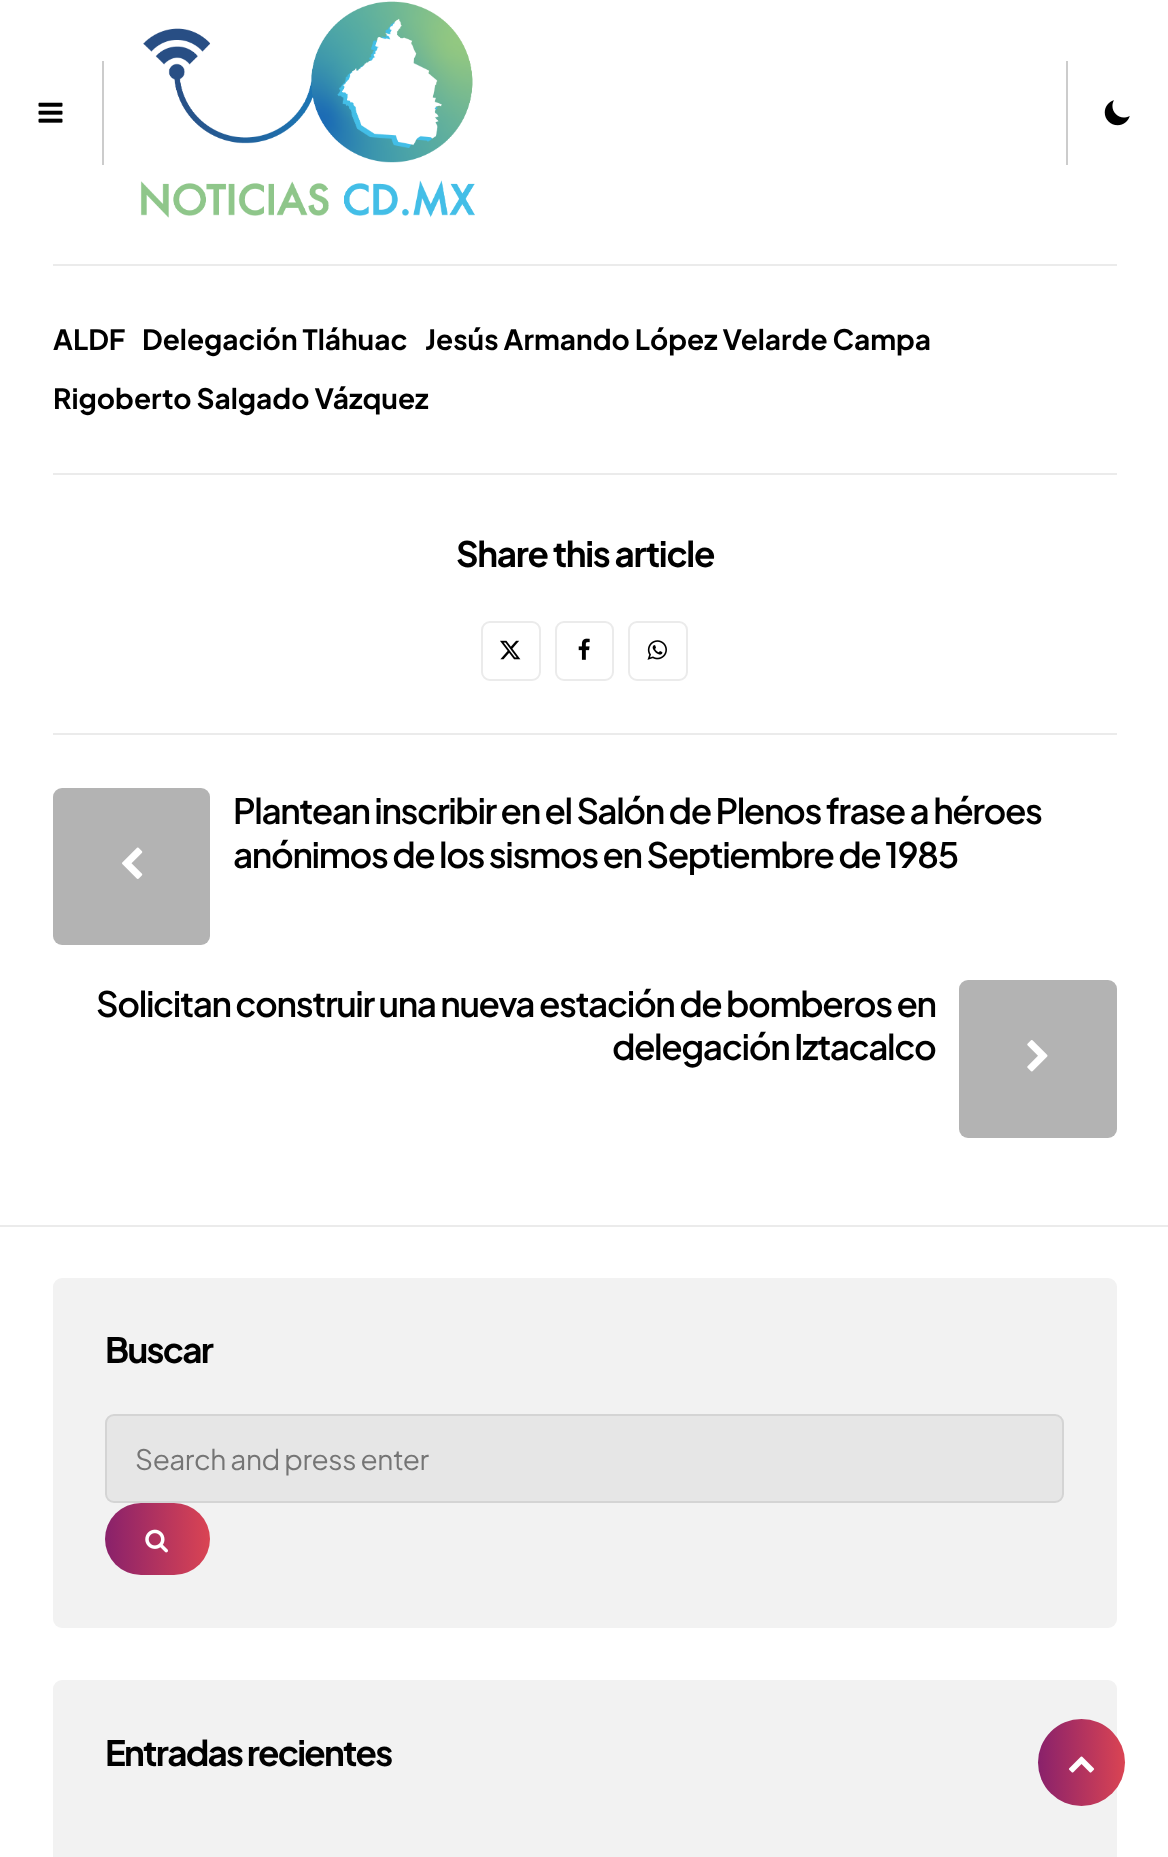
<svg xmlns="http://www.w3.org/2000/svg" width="1168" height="1857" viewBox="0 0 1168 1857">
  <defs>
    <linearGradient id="g1" gradientUnits="userSpaceOnUse" x1="105" y1="1539" x2="210" y2="1539"><stop offset="0" stop-color="rgb(137,33,107)"/><stop offset="1" stop-color="rgb(218,68,83)"/></linearGradient>
    <linearGradient id="g2" gradientUnits="userSpaceOnUse" x1="1038" y1="1762" x2="1125" y2="1762"><stop offset="0" stop-color="rgb(137,33,107)"/><stop offset="1" stop-color="rgb(218,68,83)"/></linearGradient>
  </defs>
  <rect width="100%" height="100%" fill="rgb(255,255,255)"/>
  <rect x="102" y="61" width="2" height="104" fill="rgb(204,204,204)"/>
  <image x="38" y="102" width="25" height="21" href="pic1.png"/>
  <image x="140" y="1" width="335" height="217" href="pic2.png"/>
  <rect x="1066" y="61" width="2" height="104" fill="rgb(204,204,204)"/>
  <image x="1104" y="100" width="26" height="26" href="pic3.png"/>
  <rect x="53" y="264" width="1064" height="2" fill="rgb(235,235,235)"/>
  <g font-family="Plus Jakarta Sans" font-size="28" font-weight="bold" fill="rgb(0,0,0)">
    <text x="53" y="350">ALDF</text>
    <text x="142" y="350">Delegación Tláhuac</text>
    <text x="425" y="350">Jesús Armando López Velarde Campa</text>
    <text x="53" y="409">Rigoberto Salgado Vázquez</text>
  </g>
  <rect x="53" y="473" width="1064" height="2" fill="rgb(235,235,235)"/>
  <text x="456" y="567" font-family="Plus Jakarta Sans" font-size="35" font-weight="bold" letter-spacing="-1.3" fill="rgb(0,0,0)">Share this article</text>
  <rect x="482" y="622" width="58" height="58" rx="8" fill="none" stroke="rgb(235,235,235)" stroke-width="2"/>
  <image x="500" y="640" width="21" height="20" href="pic4.png"/>
  <rect x="556" y="622" width="57" height="58" rx="8" fill="none" stroke="rgb(235,235,235)" stroke-width="2"/>
  <image x="578" y="638" width="12" height="22" href="pic5.png"/>
  <rect x="629" y="622" width="58" height="58" rx="8" fill="none" stroke="rgb(235,235,235)" stroke-width="2"/>
  <image x="647" y="640" width="20" height="20" href="pic6.png"/>
  <rect x="53" y="733" width="1064" height="2" fill="rgb(235,235,235)"/>
  <rect x="53" y="788" width="157" height="157" rx="9" fill="rgb(179,179,179)"/>
  <image x="122" y="847" width="21" height="32" href="pic7.png"/>
  <g font-family="Plus Jakarta Sans" font-size="35" font-weight="600" letter-spacing="-1.4" fill="rgb(0,0,0)">
    <text>
      <tspan x="233" y="824">Plantean inscribir en el Salón de Plenos frase a héroes</tspan>
      <tspan x="233" y="868">anónimos de los sismos en Septiembre de 1985</tspan>
    </text>
    <text x="96" y="1017">Solicitan construir una nueva estación de bomberos en</text>
    <text x="612" y="1060">delegación Iztacalco</text>
  </g>
  <rect x="959" y="980" width="158" height="158" rx="9" fill="rgb(179,179,179)"/>
  <image x="1027" y="1040" width="21" height="32" href="pic8.png"/>
  <rect x="0" y="1225" width="1168" height="2" fill="rgb(235,235,235)"/>
  <rect x="53" y="1278" width="1064" height="350" rx="9" fill="rgb(242,242,242)"/>
  <text x="105" y="1363" font-family="Plus Jakarta Sans" font-size="35" font-weight="bold" letter-spacing="-1.75" fill="rgb(0,0,0)">Buscar</text>
  <rect x="105" y="1414" width="959" height="89" rx="9" fill="rgb(230,230,230)"/>
  <rect x="106" y="1415" width="957" height="87" rx="8" fill="none" stroke="rgba(0,0,0,0.08)" stroke-width="2"/>
  <text x="135" y="1470" font-family="Plus Jakarta Sans" font-size="28" letter-spacing="-0.4" fill="rgb(117,117,117)">Search and press enter</text>
  <rect x="105" y="1503" width="105" height="72" rx="36" fill="url(#g1)"/>
  <image x="145" y="1529" width="23" height="24" href="pic9.png"/>
  <rect x="53" y="1680" width="1064" height="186" rx="9" fill="rgb(242,242,242)"/>
  <text x="105" y="1766" font-family="Plus Jakarta Sans" font-size="35" font-weight="bold" letter-spacing="-1.75" fill="rgb(0,0,0)">Entradas recientes</text>
  <circle cx="1081.5" cy="1762.5" r="43.5" fill="url(#g2)"/>
  <image x="1068" y="1756" width="27" height="17" href="pic10.png"/>
</svg>
